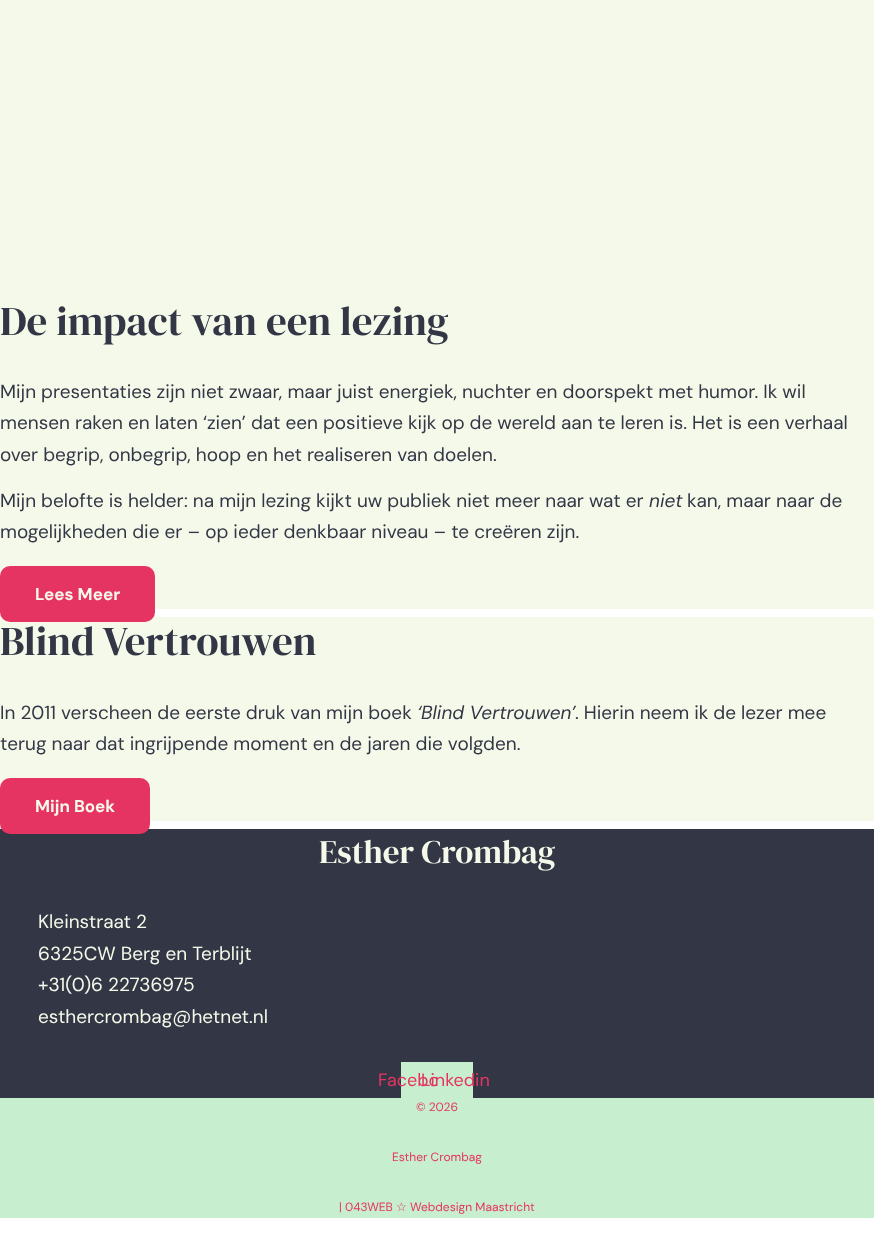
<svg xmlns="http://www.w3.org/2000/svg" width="874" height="1233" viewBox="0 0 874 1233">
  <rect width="100%" height="100%" fill="rgb(255,255,255)"/>
  <rect x="0" y="0" width="874" height="609" fill="rgb(245,249,234)"/>
  <text x="0" y="335" font-family="DM Serif Display" font-size="41" fill="rgb(51,55,69)">De impact van een lezing</text>
  <g font-family="DM Sans" font-size="19" fill="rgb(51,55,69)">
    <text>
      <tspan x="0" y="398">Mijn presentaties zijn niet zwaar, maar juist energiek, nuchter en doorspekt met humor. Ik wil</tspan>
      <tspan x="0" y="429">mensen raken en laten ‘zien’ dat een positieve kijk op de wereld aan te leren is. Het is een verhaal</tspan>
      <tspan x="0" y="461">over begrip, onbegrip, hoop en het realiseren van doelen.</tspan>
    </text>
    <text x="0" y="507">Mijn belofte is helder: na mijn lezing kijkt uw publiek niet meer naar wat er</text>
  </g>
  <text x="649" y="507" font-family="DM Sans" font-size="19" font-style="italic" fill="rgb(51,55,69)">niet</text>
  <g font-family="DM Sans" font-size="19" fill="rgb(51,55,69)">
    <text x="687" y="507">kan, maar naar de</text>
    <text x="0" y="538">mogelijkheden die er – op ieder denkbaar niveau – te creëren zijn.</text>
  </g>
  <rect x="0" y="617" width="874" height="204" fill="rgb(245,249,234)"/>
  <rect x="0" y="566" width="155" height="56" rx="10" fill="rgb(230,52,98)"/>
  <text x="35" y="600" font-family="DM Sans" font-size="17" font-weight="bold" fill="rgb(245,249,234)">Lees Meer</text>
  <text x="0" y="655" font-family="DM Serif Display" font-size="41" fill="rgb(51,55,69)">Blind Vertrouwen</text>
  <text x="0" y="719" font-family="DM Sans" font-size="19" fill="rgb(51,55,69)">In 2011 verscheen de eerste druk van mijn boek</text>
  <text x="417" y="719" font-family="DM Sans" font-size="19" font-style="italic" fill="rgb(51,55,69)">‘Blind Vertrouwen’</text>
  <g font-family="DM Sans" font-size="19" fill="rgb(51,55,69)">
    <text x="575" y="719">. Hierin neem ik de lezer mee</text>
    <text x="0" y="750">terug naar dat ingrijpende moment en de jaren die volgden.</text>
  </g>
  <rect x="0" y="829" width="874" height="269" fill="rgb(51,55,69)"/>
  <rect x="0" y="778" width="150" height="56" rx="10" fill="rgb(230,52,98)"/>
  <text x="35" y="812" font-family="DM Sans" font-size="17" font-weight="bold" fill="rgb(245,249,234)">Mijn Boek</text>
  <text x="319" y="863" font-family="DM Serif Display" font-size="33" fill="rgb(245,249,234)">Esther Crombag</text>
  <g font-family="DM Sans" font-size="19" fill="rgb(245,249,234)">
    <text>
      <tspan x="38" y="928">Kleinstraat 2</tspan>
      <tspan x="38" y="960">6325CW Berg en Terblijt</tspan>
      <tspan x="38" y="991">+31(0)6 22736975</tspan>
      <tspan x="38" y="1023">esthercrombag@hetnet.nl</tspan>
    </text>
  </g>
  <rect x="401" y="1062" width="36" height="36" fill="rgb(199,239,207)"/>
  <text x="378" y="1086" font-family="DM Sans" font-size="18" fill="rgb(230,52,98)">Facebo</text>
  <rect x="437" y="1062" width="36" height="36" fill="rgb(199,239,207)"/>
  <text x="421" y="1086" font-family="DM Sans" font-size="18" fill="rgb(230,52,98)">Linkedin</text>
  <rect x="0" y="1098" width="874" height="120" fill="rgb(199,239,207)"/>
  <g font-family="DM Sans" font-size="12" fill="rgb(230,52,98)">
    <text x="416" y="1111">© 2026</text>
    <text x="392" y="1161">Esther Crombag</text>
    <text x="339" y="1211">| 043WEB</text>
  </g>
  <text x="396" y="1211" font-family="DejaVu Sans" font-size="12" fill="rgb(230,52,98)">☆</text>
  <text x="410" y="1211" font-family="DM Sans" font-size="12" fill="rgb(230,52,98)">Webdesign Maastricht</text>
</svg>
